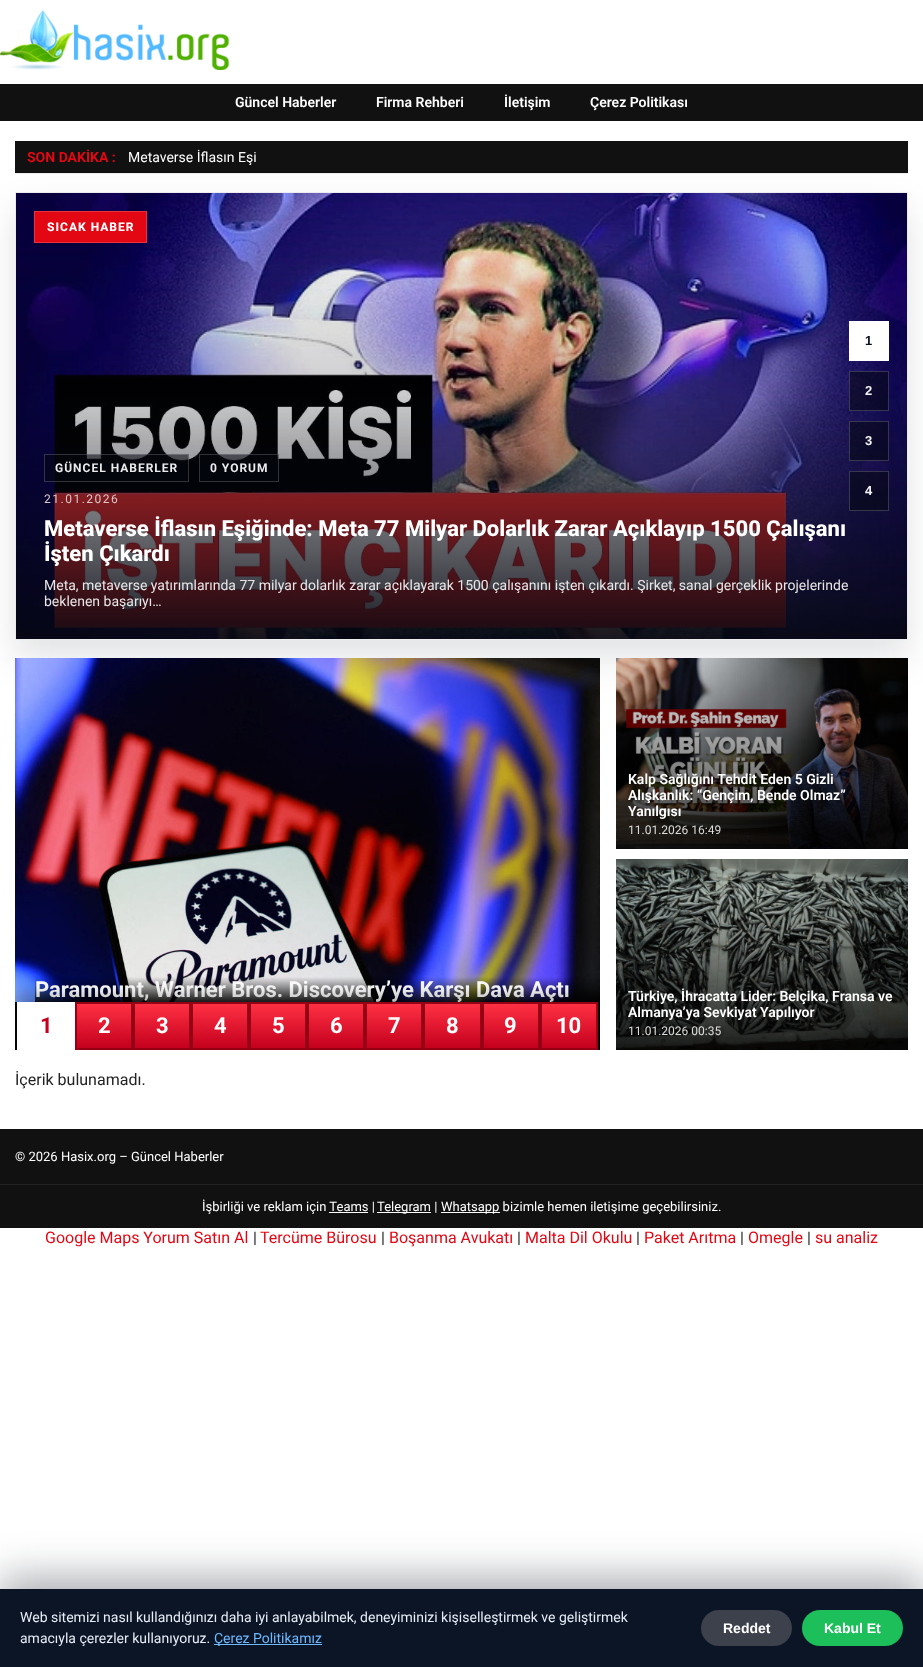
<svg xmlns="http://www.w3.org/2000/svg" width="923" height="1667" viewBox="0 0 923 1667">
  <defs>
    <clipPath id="clip1"><rect x="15" y="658" width="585" height="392"/></clipPath>
    <linearGradient id="g1" gradientUnits="userSpaceOnUse" x1="104" y1="1004" x2="104" y2="1048"><stop offset="0" stop-color="rgb(255,48,67)"/><stop offset="1" stop-color="rgb(196,0,29)"/></linearGradient>
    <linearGradient id="g2" gradientUnits="userSpaceOnUse" x1="162" y1="1004" x2="162" y2="1048"><stop offset="0" stop-color="rgb(255,48,67)"/><stop offset="1" stop-color="rgb(196,0,29)"/></linearGradient>
    <linearGradient id="g3" gradientUnits="userSpaceOnUse" x1="220" y1="1004" x2="220" y2="1048"><stop offset="0" stop-color="rgb(255,48,67)"/><stop offset="1" stop-color="rgb(196,0,29)"/></linearGradient>
    <linearGradient id="g4" gradientUnits="userSpaceOnUse" x1="278" y1="1004" x2="278" y2="1048"><stop offset="0" stop-color="rgb(255,48,67)"/><stop offset="1" stop-color="rgb(196,0,29)"/></linearGradient>
    <linearGradient id="g5" gradientUnits="userSpaceOnUse" x1="336" y1="1004" x2="336" y2="1048"><stop offset="0" stop-color="rgb(255,48,67)"/><stop offset="1" stop-color="rgb(196,0,29)"/></linearGradient>
    <linearGradient id="g6" gradientUnits="userSpaceOnUse" x1="394" y1="1004" x2="394" y2="1048"><stop offset="0" stop-color="rgb(255,48,67)"/><stop offset="1" stop-color="rgb(196,0,29)"/></linearGradient>
    <linearGradient id="g7" gradientUnits="userSpaceOnUse" x1="453" y1="1004" x2="453" y2="1048"><stop offset="0" stop-color="rgb(255,48,67)"/><stop offset="1" stop-color="rgb(196,0,29)"/></linearGradient>
    <linearGradient id="g8" gradientUnits="userSpaceOnUse" x1="511" y1="1004" x2="511" y2="1048"><stop offset="0" stop-color="rgb(255,48,67)"/><stop offset="1" stop-color="rgb(196,0,29)"/></linearGradient>
    <linearGradient id="g9" gradientUnits="userSpaceOnUse" x1="569" y1="1004" x2="569" y2="1048"><stop offset="0" stop-color="rgb(255,48,67)"/><stop offset="1" stop-color="rgb(196,0,29)"/></linearGradient>
  </defs>
  <rect width="100%" height="100%" fill="rgb(255,255,255)"/>
  <image x="0" y="10" width="229" height="60" href="pic1.png"/>
  <rect x="0" y="84" width="923" height="37" fill="rgb(17,17,17)"/>
  <g font-family="Roboto" font-size="14" font-weight="600" fill="rgb(255,255,255)">
    <text x="235" y="107">Güncel Haberler</text>
    <text x="376" y="107">Firma Rehberi</text>
    <text x="504" y="107">İletişim</text>
    <text x="590" y="107">Çerez Politikası</text>
  </g>
  <rect x="15" y="173" width="893" height="1" fill="rgb(237,237,237)"/>
  <rect x="15" y="141" width="893" height="32" fill="rgb(17,17,17)"/>
  <text x="27" y="162" font-family="Roboto" font-size="14" font-weight="bold" fill="rgb(227,6,19)">SON DAKİKA :</text>
  <text x="128" y="162" font-family="Roboto" font-size="14" fill="rgb(255,255,255)">Metaverse İflasın Eşi</text>
  <rect x="15" y="210" width="893" height="448" fill="rgba(16,24,40,0.12)" filter="blur(17.5px)"/>
  <rect x="15.5" y="192.5" width="892" height="447" fill="none" stroke="rgb(236,236,238)"/>
  <image x="16" y="193" width="891" height="446" href="pic2.png"/>
  <rect x="34.5" y="211.5" width="112" height="31" fill="rgb(227,6,19)" stroke="rgb(232,51,61)"/>
  <text x="47" y="231" font-family="Roboto" font-size="12" font-weight="800" letter-spacing="1" fill="rgb(255,255,255)">SICAK HABER</text>
  <rect x="44" y="454" width="145" height="28" fill="rgba(5,7,16,0.55)"/>
  <rect x="44.5" y="454.5" width="144" height="27" fill="none" stroke="rgba(255,255,255,0.18)"/>
  <text x="55" y="472" font-family="Roboto" font-size="12" font-weight="bold" letter-spacing="1" fill="rgb(235,235,236)">GÜNCEL HABERLER</text>
  <rect x="199" y="454" width="80" height="28" fill="rgba(5,7,16,0.55)"/>
  <rect x="199.5" y="454.5" width="79" height="27" fill="none" stroke="rgba(255,255,255,0.18)"/>
  <text x="210" y="472" font-family="Roboto" font-size="12" font-weight="bold" letter-spacing="1" fill="rgb(235,235,236)">0 YORUM</text>
  <text x="44" y="503" font-family="Roboto" font-size="12" letter-spacing="1.5" fill="rgb(219,198,200)">21.01.2026</text>
  <g font-family="Roboto" font-size="22" font-weight="800" fill="rgb(255,255,255)">
    <text>
      <tspan x="44" y="536">Metaverse İflasın Eşiğinde: Meta 77 Milyar Dolarlık Zarar Açıklayıp 1500 Çalışanı</tspan>
      <tspan x="44" y="561">İşten Çıkardı</tspan>
    </text>
  </g>
  <g font-family="Roboto" font-size="14" fill="rgb(231,229,230)">
    <text>
      <tspan x="44" y="590">Meta, metaverse yatırımlarında 77 milyar dolarlık zarar açıklayarak 1500 çalışanını işten çıkardı. Şirket, sanal gerçeklik projelerinde</tspan>
      <tspan x="44" y="606">beklenen başarıyı…</tspan>
    </text>
  </g>
  <rect x="849" y="321" width="40" height="40" fill="rgb(255,255,255)"/>
  <text x="865" y="345" font-family="Liberation Sans" font-size="13" font-weight="bold" fill="rgb(11,17,32)">1</text>
  <rect x="849" y="371" width="40" height="40" fill="rgba(5,7,16,0.55)"/>
  <rect x="849.5" y="371.5" width="39" height="39" fill="none" stroke="rgba(255,255,255,0.18)"/>
  <text x="865" y="395" font-family="Liberation Sans" font-size="13" font-weight="bold" fill="rgb(243,243,245)">2</text>
  <rect x="849" y="421" width="40" height="40" fill="rgba(5,7,16,0.55)"/>
  <rect x="849.5" y="421.5" width="39" height="39" fill="none" stroke="rgba(255,255,255,0.18)"/>
  <text x="865" y="445" font-family="Liberation Sans" font-size="13" font-weight="bold" fill="rgb(243,243,245)">3</text>
  <rect x="849" y="471" width="40" height="40" fill="rgba(5,7,16,0.55)"/>
  <rect x="849.5" y="471.5" width="39" height="39" fill="none" stroke="rgba(255,255,255,0.18)"/>
  <text x="865" y="495" font-family="Liberation Sans" font-size="13" font-weight="bold" fill="rgb(243,243,245)">4</text>
  <image x="15" y="658" width="585" height="344" href="pic3.png"/>
  <text x="35" y="997" font-family="Roboto" font-size="22" font-weight="bold" fill="rgb(255,255,255)">Paramount, Warner Bros. Discovery’ye Karşı Dava Açtı</text>
  <image x="616" y="859" width="292" height="191" href="pic5.png"/>
  <g clip-path="url(#clip1)">
    <rect x="15" y="996" width="585" height="48" fill="rgba(0,0,0,0.35)" filter="blur(9px)"/>
  </g>
  <rect x="15" y="1002" width="585" height="48" fill="rgb(5,5,5)"/>
  <rect x="17" y="1002" width="58" height="48" fill="rgb(255,255,255)"/>
  <text x="40" y="1033" font-family="Roboto" font-size="22" font-weight="bold" fill="rgb(196,0,29)">1</text>
  <rect x="77" y="1004" width="54" height="44" fill="url(#g1)"/>
  <rect x="76" y="1003" width="56" height="46" fill="none" stroke="rgb(149,0,20)" stroke-width="2"/>
  <text x="98" y="1033" font-family="Roboto" font-size="22" font-weight="bold" fill="rgb(255,255,255)">2</text>
  <rect x="135" y="1004" width="54" height="44" fill="url(#g2)"/>
  <rect x="134" y="1003" width="56" height="46" fill="none" stroke="rgb(149,0,20)" stroke-width="2"/>
  <text x="156" y="1033" font-family="Roboto" font-size="22" font-weight="bold" fill="rgb(255,255,255)">3</text>
  <rect x="193" y="1004" width="54" height="44" fill="url(#g3)"/>
  <rect x="192" y="1003" width="56" height="46" fill="none" stroke="rgb(149,0,20)" stroke-width="2"/>
  <text x="214" y="1033" font-family="Roboto" font-size="22" font-weight="bold" fill="rgb(255,255,255)">4</text>
  <rect x="251" y="1004" width="54" height="44" fill="url(#g4)"/>
  <rect x="250" y="1003" width="56" height="46" fill="none" stroke="rgb(149,0,20)" stroke-width="2"/>
  <text x="272" y="1033" font-family="Roboto" font-size="22" font-weight="bold" fill="rgb(255,255,255)">5</text>
  <rect x="309" y="1004" width="54" height="44" fill="url(#g5)"/>
  <rect x="308" y="1003" width="56" height="46" fill="none" stroke="rgb(149,0,20)" stroke-width="2"/>
  <text x="330" y="1033" font-family="Roboto" font-size="22" font-weight="bold" fill="rgb(255,255,255)">6</text>
  <rect x="367" y="1004" width="54" height="44" fill="url(#g6)"/>
  <rect x="366" y="1003" width="56" height="46" fill="none" stroke="rgb(149,0,20)" stroke-width="2"/>
  <text x="388" y="1033" font-family="Roboto" font-size="22" font-weight="bold" fill="rgb(255,255,255)">7</text>
  <rect x="425" y="1004" width="55" height="44" fill="url(#g7)"/>
  <rect x="424" y="1003" width="57" height="46" fill="none" stroke="rgb(149,0,20)" stroke-width="2"/>
  <text x="446" y="1033" font-family="Roboto" font-size="22" font-weight="bold" fill="rgb(255,255,255)">8</text>
  <rect x="484" y="1004" width="54" height="44" fill="url(#g8)"/>
  <rect x="483" y="1003" width="56" height="46" fill="none" stroke="rgb(149,0,20)" stroke-width="2"/>
  <text x="504" y="1033" font-family="Roboto" font-size="22" font-weight="bold" fill="rgb(255,255,255)">9</text>
  <rect x="542" y="1004" width="54" height="44" fill="url(#g9)"/>
  <rect x="541" y="1003" width="56" height="46" fill="none" stroke="rgb(149,0,20)" stroke-width="2"/>
  <text x="556" y="1033" font-family="Roboto" font-size="22" font-weight="bold" fill="rgb(255,255,255)">10</text>
  <image x="616" y="658" width="292" height="191" href="pic4.png"/>
  <g font-family="Roboto" font-size="14" font-weight="600" fill="rgb(255,255,255)">
    <text>
      <tspan x="628" y="784">Kalp Sağlığını Tehdit Eden 5 Gizli</tspan>
      <tspan x="628" y="800">Alışkanlık: “Gençim, Bende Olmaz”</tspan>
      <tspan x="628" y="816">Yanılgısı</tspan>
    </text>
  </g>
  <text x="628" y="834" font-family="Roboto" font-size="12" fill="rgb(220,220,219)">11.01.2026 16:49</text>
  <g font-family="Roboto" font-size="14" font-weight="600" fill="rgb(255,255,255)">
    <text>
      <tspan x="628" y="1001">Türkiye, İhracatta Lider: Belçika, Fransa ve</tspan>
      <tspan x="628" y="1017">Almanya’ya Sevkiyat Yapılıyor</tspan>
    </text>
  </g>
  <text x="628" y="1035" font-family="Roboto" font-size="12" fill="rgb(220,220,219)">11.01.2026 00:35</text>
  <text x="15" y="1085" font-family="Roboto" font-size="16" fill="rgb(34,34,34)">İçerik bulunamadı.</text>
  <rect x="0" y="1129" width="923" height="55" fill="rgb(17,17,17)"/>
  <text x="15" y="1161" font-family="Roboto" font-size="13" fill="rgb(255,255,255)">© 2026 Hasix.org – Güncel Haberler</text>
  <rect x="0" y="1185" width="923" height="43" fill="rgb(17,17,17)"/>
  <rect x="0" y="1184" width="923" height="1" fill="rgb(36,36,36)"/>
  <text x="202" y="1211" font-family="Roboto" font-size="13" fill="rgb(255,255,255)">İşbirliği ve reklam için Teams |</text>
  <rect x="377" y="1212" width="54" height="1" fill="rgb(255,255,255)"/>
  <text x="377" y="1211" font-family="Roboto" font-size="13" fill="rgb(255,255,255)">Telegram |</text>
  <rect x="441" y="1212" width="59" height="1" fill="rgb(255,255,255)"/>
  <text x="441" y="1211" font-family="Roboto" font-size="13" fill="rgb(255,255,255)">Whatsapp bizimle hemen iletişime geçebilirsiniz.</text>
  <rect x="329" y="1212" width="39" height="1" fill="rgb(255,255,255)"/>
  <text x="45" y="1243" font-family="Roboto" font-size="16" fill="rgb(227,6,19)">Google Maps Yorum Satın Al</text>
  <text x="253" y="1243" font-family="Roboto" font-size="16" fill="rgb(34,34,34)">|</text>
  <text x="260" y="1243" font-family="Roboto" font-size="16" fill="rgb(227,6,19)">Tercüme Bürosu</text>
  <text x="381" y="1243" font-family="Roboto" font-size="16" fill="rgb(34,34,34)">|</text>
  <text x="389" y="1243" font-family="Roboto" font-size="16" fill="rgb(227,6,19)">Boşanma Avukatı</text>
  <text x="517" y="1243" font-family="Roboto" font-size="16" fill="rgb(34,34,34)">|</text>
  <text x="525" y="1243" font-family="Roboto" font-size="16" fill="rgb(227,6,19)">Malta Dil Okulu</text>
  <text x="636" y="1243" font-family="Roboto" font-size="16" fill="rgb(34,34,34)">|</text>
  <text x="644" y="1243" font-family="Roboto" font-size="16" fill="rgb(227,6,19)">Paket Arıtma</text>
  <text x="740" y="1243" font-family="Roboto" font-size="16" fill="rgb(34,34,34)">|</text>
  <text x="748" y="1243" font-family="Roboto" font-size="16" fill="rgb(227,6,19)">Omegle</text>
  <text x="807" y="1243" font-family="Roboto" font-size="16" fill="rgb(34,34,34)">|</text>
  <text x="815" y="1243" font-family="Roboto" font-size="16" fill="rgb(227,6,19)">su analiz</text>
  <rect x="0" y="1577" width="923" height="78" fill="rgba(12,21,34,0.35)" filter="blur(20px)"/>
  <rect x="0" y="1589" width="923" height="78" fill="rgb(11,21,38)"/>
  <g font-family="Roboto" font-size="14" fill="rgb(231,236,246)">
    <text>
      <tspan x="20" y="1622">Web sitemizi nasıl kullandığınızı daha iyi anlayabilmek, deneyiminizi kişiselleştirmek ve geliştirmek</tspan>
      <tspan x="20" y="1643">amacıyla çerezler kullanıyoruz.</tspan>
    </text>
  </g>
  <rect x="214" y="1644" width="108" height="1" fill="rgb(111,185,255)"/>
  <text x="214" y="1643" font-family="Roboto" font-size="14" fill="rgb(111,185,255)">Çerez Politikamız</text>
  <rect x="701" y="1610" width="91" height="36" rx="18" fill="rgb(60,65,75)"/>
  <text x="723" y="1633" font-family="Liberation Sans" font-size="14" font-weight="bold" fill="rgb(255,255,255)">Reddet</text>
  <rect x="802" y="1610" width="101" height="36" rx="18" fill="rgb(29,191,91)"/>
  <text x="824" y="1633" font-family="Liberation Sans" font-size="14" font-weight="bold" fill="rgb(255,255,255)">Kabul Et</text>
</svg>
